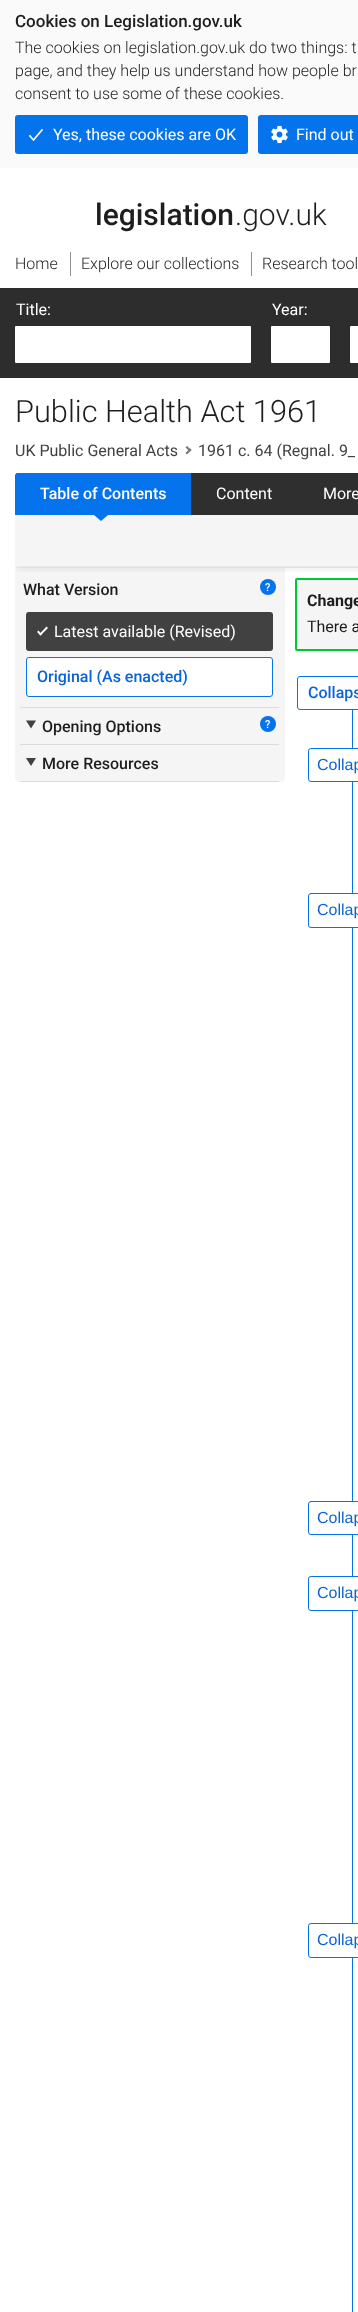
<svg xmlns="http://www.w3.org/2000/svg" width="358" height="2312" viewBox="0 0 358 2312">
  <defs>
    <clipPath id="clip1"><rect x="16" y="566" width="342" height="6"/></clipPath>
  </defs>
  <rect width="100%" height="100%" fill="rgb(255,255,255)"/>
  <rect x="0" y="0" width="358" height="168" fill="rgb(250,250,250)"/>
  <text x="15" y="27" font-family="Roboto" font-size="17" font-weight="500" fill="rgb(30,30,30)">Cookies on Legislation.gov.uk</text>
  <g font-family="Roboto" font-size="16" font-weight="300" fill="rgb(30,30,30)">
    <text>
      <tspan x="15" y="53">The cookies on legislation.gov.uk do two things: t</tspan>
      <tspan x="15" y="76">page, and they help us understand how people br</tspan>
      <tspan x="15" y="99">consent to use some of these cookies.</tspan>
    </text>
  </g>
  <rect x="15" y="115" width="233" height="39" rx="3" fill="rgb(5,115,235)"/>
  <path d="M42 130L33.5 140L30 136" fill="none" stroke="rgb(255,255,255)" stroke-width="1.7" stroke-linecap="square"/>
  <text x="53" y="140" font-family="Roboto" font-size="16" fill="rgb(255,255,255)">Yes, these cookies are OK</text>
  <rect x="258" y="115" width="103" height="39" rx="3" fill="rgb(5,115,235)"/>
  <image x="271" y="125" width="17" height="19" href="pic1.png"/>
  <text x="296" y="140" font-family="Roboto" font-size="16" fill="rgb(255,255,255)">Find out</text>
  <text x="95" y="225" font-family="Roboto" font-size="30" font-weight="500" fill="rgb(30,30,30)">legislation</text>
  <text x="235" y="225" font-family="Roboto" font-size="30" font-weight="300" fill="rgb(30,30,30)">.gov.uk</text>
  <rect x="0" y="288" width="358" height="90" fill="rgb(45,45,45)"/>
  <text x="15" y="269" font-family="Roboto" font-size="16" font-weight="300" fill="rgb(30,30,30)">Home</text>
  <rect x="70" y="252" width="1" height="24" fill="rgb(145,145,145)"/>
  <text x="81" y="269" font-family="Roboto" font-size="16" font-weight="300" fill="rgb(30,30,30)">Explore our collections</text>
  <rect x="251" y="252" width="1" height="24" fill="rgb(145,145,145)"/>
  <text x="262" y="269" font-family="Roboto" font-size="16" font-weight="300" fill="rgb(30,30,30)">Research tool</text>
  <text x="16" y="315" font-family="Roboto" font-size="16" fill="rgb(255,255,255)">Title:</text>
  <rect x="15" y="326" width="236" height="37" rx="1" fill="rgb(255,255,255)"/>
  <text x="272" y="315" font-family="Roboto" font-size="16" fill="rgb(255,255,255)">Year:</text>
  <rect x="271" y="326" width="59" height="37" rx="1" fill="rgb(255,255,255)"/>
  <rect x="350" y="326" width="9" height="37" rx="1" fill="rgb(255,255,255)"/>
  <text x="15" y="422" font-family="Roboto" font-size="30.75" font-weight="300" fill="rgb(30,30,30)">Public Health Act 1961</text>
  <text x="15" y="456" font-family="Roboto" font-size="16" fill="rgb(65,65,65)">UK Public General Acts</text>
  <path d="M187 446L191.5 450L190 451.5L185.5 447.5Z" fill="rgb(120,120,120)"/>
  <path d="M190 448.5L191.5 450L187 454.5L185.5 453Z" fill="rgb(120,120,120)"/>
  <text x="198" y="456" font-family="Roboto" font-size="16" fill="rgb(65,65,65)">1961 c. 64 (Regnal. 9_</text>
  <path d="M18 473H358C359.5 473 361 474.5 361 476V515H15V476C15 474.5 16.5 473 18 473Z" fill="rgb(46,47,46)"/>
  <path d="M18 473H191V515H15V476C15 474.5 16.5 473 18 473Z" fill="rgb(5,115,235)"/>
  <text x="40" y="499" font-family="Roboto" font-size="16" font-weight="500" fill="rgb(255,255,255)">Table of Contents</text>
  <rect x="15" y="515" width="343" height="52" fill="rgb(245,245,245)"/>
  <path d="M94 515H108L101 521Z" fill="rgb(5,115,235)"/>
  <g font-family="Roboto" font-size="16" fill="rgb(255,255,255)">
    <text x="216" y="499">Content</text>
    <text x="323" y="499">More</text>
  </g>
  <rect x="15" y="567" width="343" height="1" fill="rgb(235,235,235)"/>
  <path d="M15 568H285V777C285 780 283 782 280 782H20C17 782 15 780 15 777Z" fill="rgb(245,245,245)"/>
  <rect x="20" y="707" width="259" height="1" fill="rgb(220,220,220)"/>
  <text x="23" y="595" font-family="Roboto" font-size="16" font-weight="500" fill="rgb(30,30,30)">What Version</text>
  <circle cx="268" cy="587" r="8" fill="rgb(5,115,235)"/>
  <text x="265" y="591" font-family="Roboto" font-size="11" font-weight="500" fill="rgb(255,255,255)">?</text>
  <rect x="26" y="612" width="247" height="39" rx="3" fill="rgb(65,65,65)"/>
  <path d="M46.5 626.5L48 628L40.5 635.5L39 634.5Z" fill="rgb(255,255,255)"/>
  <path d="M38.5 630.5L42 634.5L40.5 635.5L37 632Z" fill="rgb(255,255,255)"/>
  <text x="54" y="637" font-family="Roboto" font-size="16" fill="rgb(255,255,255)">Latest available (Revised)</text>
  <rect x="26.5" y="657.5" width="246" height="39" rx="2.5" fill="rgb(255,255,255)" stroke="rgb(5,115,235)"/>
  <text x="37" y="682" font-family="Roboto" font-size="16" font-weight="500" fill="rgb(10,100,215)">Original (As enacted)</text>
  <rect x="20" y="744" width="259" height="1" fill="rgb(220,220,220)"/>
  <path d="M26 720.5H36L31 728.5ZM26 758H36L31 766Z" fill="rgb(65,65,65)"/>
  <text x="42" y="732" font-family="Roboto" font-size="16" font-weight="500" fill="rgb(30,30,30)">Opening Options</text>
  <circle cx="268" cy="724" r="8" fill="rgb(5,115,235)"/>
  <text x="265" y="728" font-family="Roboto" font-size="11" font-weight="500" fill="rgb(255,255,255)">?</text>
  <rect x="20" y="781" width="259" height="1" fill="rgb(220,220,220)"/>
  <text x="42" y="769" font-family="Roboto" font-size="16" font-weight="500" fill="rgb(30,30,30)">More Resources</text>
  <rect x="296" y="579" width="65" height="71" rx="1" fill="rgb(245,245,245)" stroke="rgb(0,200,50)" stroke-width="2"/>
  <g clip-path="url(#clip1)">
    <rect x="17" y="564" width="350" height="6" fill="rgba(1,1,1,0.07)" filter="blur(3px)"/>
  </g>
  <text x="307" y="606" font-family="Roboto" font-size="16" font-weight="bold" fill="rgb(30,30,30)">Change</text>
  <text x="307" y="632" font-family="Roboto" font-size="16" fill="rgb(30,30,30)">There a</text>
  <rect x="297.5" y="676.5" width="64" height="33" rx="2.5" fill="none" stroke="rgb(5,115,235)"/>
  <text x="308" y="698" font-family="Roboto" font-size="16" font-weight="500" fill="rgb(10,100,215)">Collaps</text>
  <rect x="352" y="710" width="1" height="1602" fill="rgb(5,115,235)"/>
  <rect x="308.5" y="748.5" width="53" height="33" rx="2.5" fill="rgb(255,255,255)" stroke="rgb(5,115,235)"/>
  <text x="317" y="770" font-family="Liberation Sans" font-size="16" fill="rgb(10,100,215)">Collap</text>
  <rect x="308.5" y="893.5" width="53" height="34" rx="2.5" fill="rgb(255,255,255)" stroke="rgb(5,115,235)"/>
  <text x="317" y="915" font-family="Liberation Sans" font-size="16" fill="rgb(10,100,215)">Collap</text>
  <rect x="308.5" y="1501.5" width="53" height="33" rx="2.5" fill="rgb(255,255,255)" stroke="rgb(5,115,235)"/>
  <text x="317" y="1523" font-family="Liberation Sans" font-size="16" fill="rgb(10,100,215)">Collap</text>
  <rect x="308.5" y="1576.5" width="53" height="34" rx="2.5" fill="rgb(255,255,255)" stroke="rgb(5,115,235)"/>
  <text x="317" y="1598" font-family="Liberation Sans" font-size="16" fill="rgb(10,100,215)">Collap</text>
  <rect x="308.5" y="1923.5" width="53" height="34" rx="2.5" fill="rgb(255,255,255)" stroke="rgb(5,115,235)"/>
  <text x="317" y="1945" font-family="Liberation Sans" font-size="16" fill="rgb(10,100,215)">Collap</text>
</svg>
